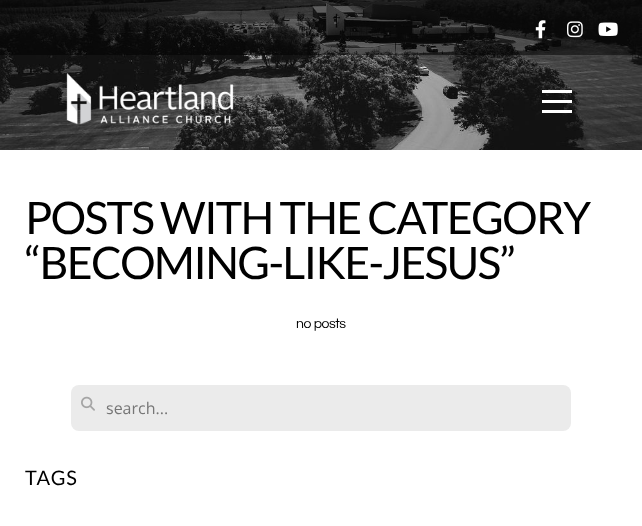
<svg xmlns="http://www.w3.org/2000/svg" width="642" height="526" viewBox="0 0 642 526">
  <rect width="100%" height="100%" fill="rgb(255,255,255)"/>
  <image x="0" y="0" width="642" height="150" href="pic1.png"/>
  <rect x="0" y="0" width="642" height="55" fill="rgba(0,0,0,0.49)"/>
  <image x="535" y="20" width="11" height="19" href="pic2.png"/>
  <image x="567" y="21" width="16" height="17" href="pic3.png"/>
  <image x="598" y="22" width="20" height="14" href="pic4.png"/>
  <image x="66" y="73" width="168" height="52" href="pic5.png"/>
  <rect x="542" y="90" width="30" height="3" fill="rgb(255,255,255)"/>
  <rect x="542" y="100" width="30" height="3" fill="rgb(255,255,255)"/>
  <rect x="542" y="110" width="30" height="3" fill="rgb(255,255,255)"/>
  <g font-family="Lato" font-size="44.75" letter-spacing="-1.75" fill="rgb(0,0,0)">
    <text>
      <tspan x="25" y="234">POSTS WITH THE CATEGORY</tspan>
      <tspan x="25" y="279">“BECOMING-LIKE-JESUS”</tspan>
    </text>
  </g>
  <text x="296" y="328" font-family="Questrial" font-size="14" letter-spacing="-0.5" fill="rgb(0,0,0)">no posts</text>
  <rect x="71" y="385" width="500" height="46" rx="8" fill="rgb(235,235,235)"/>
  <image x="81" y="396" width="14" height="15" href="pic6.png"/>
  <text x="106" y="414" font-family="Open Sans" font-size="16" fill="rgb(118,118,118)">search...</text>
  <text x="25" y="485" font-family="Lato" font-size="20" letter-spacing="1" fill="rgb(0,0,0)">TAGS</text>
</svg>
